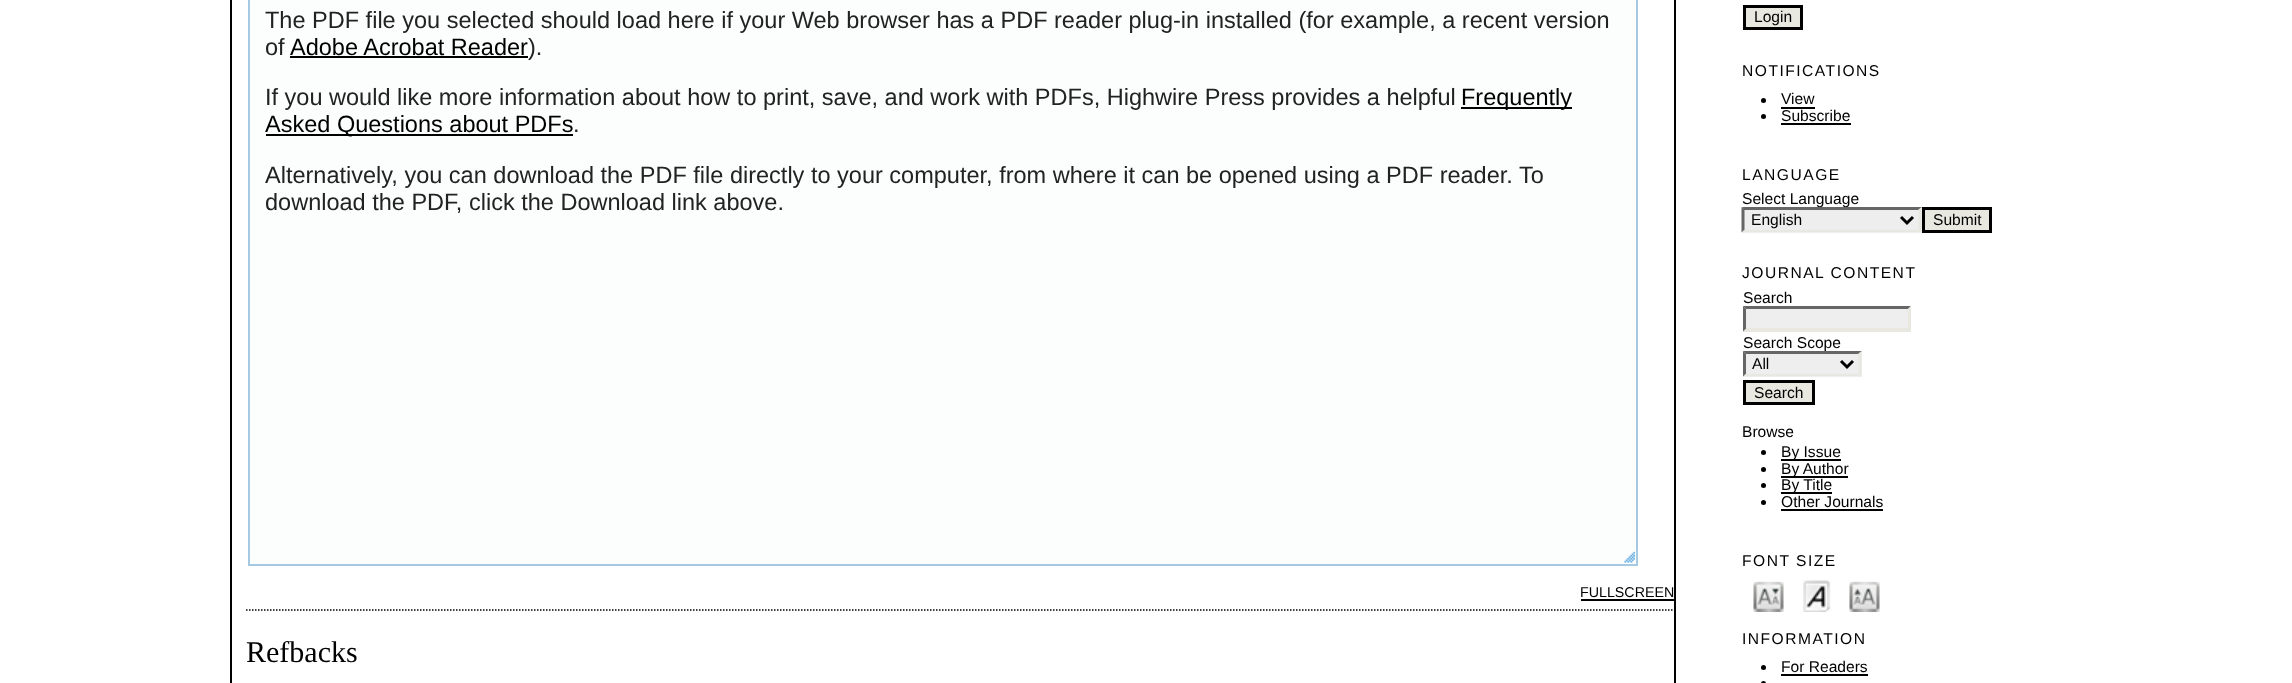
<svg xmlns="http://www.w3.org/2000/svg" width="2292" height="683" viewBox="0 0 2292 683">
  <rect width="100%" height="100%" fill="rgb(255,255,255)"/>
  <rect x="1674" y="0" width="2" height="683" fill="rgb(0,0,0)"/>
  <rect x="230" y="0" width="2" height="683" fill="rgb(0,0,0)"/>
  <rect x="249" y="-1" width="1388" height="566" fill="rgb(252,253,253)" stroke="rgb(166,201,226)" stroke-width="2"/>
  <g font-family="Liberation Sans" font-size="23.52" fill="rgb(34,34,34)">
    <text>
      <tspan x="265" y="28">The PDF file you selected should load here if your Web browser has a PDF reader plug-in installed (for example, a recent version</tspan>
      <tspan x="265" y="55">of</tspan>
    </text>
  </g>
  <text x="290" y="55" font-family="Liberation Sans" font-size="23.52" fill="rgb(0,0,0)">Adobe Acrobat Reader</text>
  <rect x="290" y="56" width="238" height="2" fill="rgb(0,0,0)"/>
  <g font-family="Liberation Sans" font-size="23.52" fill="rgb(34,34,34)">
    <text x="528" y="55">).</text>
    <text x="265" y="105">If you would like more information about how to print, save, and work with PDFs, Highwire Press provides a helpful</text>
  </g>
  <rect x="1461" y="107" width="111" height="2" fill="rgb(0,0,0)"/>
  <text x="1461" y="105" font-family="Liberation Sans" font-size="23.52" fill="rgb(0,0,0)">Frequently</text>
  <rect x="266" y="134" width="307" height="2" fill="rgb(0,0,0)"/>
  <text x="265" y="132" font-family="Liberation Sans" font-size="23.52" fill="rgb(0,0,0)">Asked Questions about PDFs</text>
  <g font-family="Liberation Sans" font-size="23.52" fill="rgb(34,34,34)">
    <text x="573" y="132">.</text>
    <text>
      <tspan x="265" y="183">Alternatively, you can download the PDF file directly to your computer, from where it can be opened using a PDF reader. To</tspan>
      <tspan x="265" y="210">download the PDF, click the Download link above.</tspan>
    </text>
  </g>
  <image x="1624" y="551" width="11" height="12" href="pic1.png"/>
  <text x="1580" y="597" font-family="Liberation Sans" font-size="14.25" fill="rgb(0,0,0)">FULLSCREEN</text>
  <rect x="1581" y="599" width="93" height="2" fill="rgb(0,0,0)"/>
  <path d="M246 610H1674" fill="none" stroke="rgb(0,0,0)" stroke-width="1.5" stroke-dasharray="1.5 1.5"/>
  <text x="246" y="662" font-family="Liberation Serif" font-size="30" fill="rgb(0,0,0)">Refbacks</text>
  <rect x="1744.5" y="6.5" width="57" height="22" fill="rgb(232,232,225)" stroke="rgb(0,0,0)" stroke-width="3"/>
  <text x="1754" y="22" font-family="Liberation Sans" font-size="15.6" fill="rgb(0,0,0)">Login</text>
  <text x="1742" y="76" font-family="Liberation Sans" font-size="15.6" letter-spacing="1.5" fill="rgb(0,0,0)">NOTIFICATIONS</text>
  <circle cx="1763.5" cy="100.5" r="2.5" fill="rgb(0,0,0)"/>
  <text x="1781" y="104" font-family="Liberation Sans" font-size="15.6" fill="rgb(0,0,0)">View</text>
  <rect x="1781" y="107" width="34" height="2" fill="rgb(0,0,0)"/>
  <circle cx="1763.5" cy="116.5" r="2.5" fill="rgb(0,0,0)"/>
  <text x="1781" y="121" font-family="Liberation Sans" font-size="15.6" fill="rgb(0,0,0)">Subscribe</text>
  <rect x="1781" y="123" width="70" height="2" fill="rgb(0,0,0)"/>
  <text x="1742" y="180" font-family="Liberation Sans" font-size="15.6" letter-spacing="1.5" fill="rgb(0,0,0)">LANGUAGE</text>
  <text x="1742" y="204" font-family="Liberation Sans" font-size="15.6" fill="rgb(0,0,0)">Select Language</text>
  <rect x="1742" y="207" width="180" height="26" fill="rgb(238,238,238)"/>
  <path d="M1742 207H1922L1918 210H1744Z" fill="rgb(102,102,102)"/>
  <path d="M1921.5 207V232.5L1918.5 229.5V210Z" fill="rgb(232,232,225)"/>
  <path d="M1922 232H1742L1744 230H1918Z" fill="rgb(232,232,225)"/>
  <path d="M1741.5 232.5V207L1744.5 210V229.5Z" fill="rgb(102,102,102)"/>
  <path d="M1901 217L1907 223L1913 217" fill="none" stroke="rgb(0,0,0)" stroke-width="3"/>
  <text x="1751" y="225" font-family="Liberation Sans" font-size="15.6" fill="rgb(0,0,0)">English</text>
  <rect x="1923.5" y="208.5" width="67" height="23" fill="rgb(232,232,225)" stroke="rgb(0,0,0)" stroke-width="3"/>
  <text x="1933" y="225" font-family="Liberation Sans" font-size="15.6" fill="rgb(0,0,0)">Submit</text>
  <text x="1742" y="278" font-family="Liberation Sans" font-size="15.6" letter-spacing="1.5" fill="rgb(0,0,0)">JOURNAL CONTENT</text>
  <text x="1743" y="303" font-family="Liberation Sans" font-size="15.6" fill="rgb(0,0,0)">Search</text>
  <rect x="1743" y="306" width="168" height="26" fill="rgb(238,238,238)"/>
  <path d="M1743 306H1911L1908 309H1746Z" fill="rgb(102,102,102)"/>
  <path d="M1911 306V331.5L1908 328.5V309Z" fill="rgb(232,232,225)"/>
  <path d="M1911 332H1743L1746 328H1908Z" fill="rgb(232,232,225)"/>
  <path d="M1743 331.5V306L1746 309V328.5Z" fill="rgb(102,102,102)"/>
  <text x="1743" y="348" font-family="Liberation Sans" font-size="15.6" fill="rgb(0,0,0)">Search Scope</text>
  <rect x="1743" y="351" width="119" height="26" fill="rgb(238,238,238)"/>
  <path d="M1743 351H1862L1858 354H1746Z" fill="rgb(102,102,102)"/>
  <path d="M1861.5 351V376.5L1858.5 373.5V354Z" fill="rgb(232,232,225)"/>
  <path d="M1862 376H1743L1746 374H1858Z" fill="rgb(232,232,225)"/>
  <path d="M1743 376.5V351L1746 354V373.5Z" fill="rgb(102,102,102)"/>
  <path d="M1841 361L1847 367L1853 361" fill="none" stroke="rgb(0,0,0)" stroke-width="3"/>
  <text x="1752" y="369" font-family="Liberation Sans" font-size="15.6" fill="rgb(0,0,0)">All</text>
  <rect x="1744.5" y="381.5" width="69" height="22" fill="rgb(232,232,225)" stroke="rgb(0,0,0)" stroke-width="3"/>
  <g font-family="Liberation Sans" font-size="15.6" fill="rgb(0,0,0)">
    <text x="1754" y="398">Search</text>
    <text x="1742" y="437">Browse</text>
  </g>
  <circle cx="1763.5" cy="452.5" r="2.5" fill="rgb(0,0,0)"/>
  <rect x="1781" y="459" width="60" height="2" fill="rgb(0,0,0)"/>
  <text x="1781" y="457" font-family="Liberation Sans" font-size="15.6" fill="rgb(0,0,0)">By Issue</text>
  <circle cx="1763.5" cy="469.5" r="2.5" fill="rgb(0,0,0)"/>
  <rect x="1781" y="476" width="67" height="2" fill="rgb(0,0,0)"/>
  <text x="1781" y="474" font-family="Liberation Sans" font-size="15.6" fill="rgb(0,0,0)">By Author</text>
  <circle cx="1763.5" cy="485.5" r="2.5" fill="rgb(0,0,0)"/>
  <rect x="1781" y="492" width="51" height="2" fill="rgb(0,0,0)"/>
  <text x="1781" y="490" font-family="Liberation Sans" font-size="15.6" fill="rgb(0,0,0)">By Title</text>
  <circle cx="1763.5" cy="502.5" r="2.5" fill="rgb(0,0,0)"/>
  <text x="1781" y="507" font-family="Liberation Sans" font-size="15.6" fill="rgb(0,0,0)">Other Journals</text>
  <rect x="1781" y="509" width="102" height="2" fill="rgb(0,0,0)"/>
  <text x="1742" y="566" font-family="Liberation Sans" font-size="15.6" letter-spacing="1.5" fill="rgb(0,0,0)">FONT SIZE</text>
  <image x="1753" y="581" width="31" height="31" href="pic2.png"/>
  <image x="1803" y="580" width="28" height="32" href="pic3.png"/>
  <image x="1849" y="581" width="31" height="31" href="pic4.png"/>
  <text x="1742" y="644" font-family="Liberation Sans" font-size="15.6" letter-spacing="1.5" fill="rgb(0,0,0)">INFORMATION</text>
  <circle cx="1763.5" cy="667.5" r="2.5" fill="rgb(0,0,0)"/>
  <text x="1781" y="672" font-family="Liberation Sans" font-size="15.6" fill="rgb(0,0,0)">For Readers</text>
  <rect x="1781" y="674" width="87" height="2" fill="rgb(0,0,0)"/>
  <circle cx="1763.5" cy="683.5" r="2.5" fill="rgb(0,0,0)"/>
</svg>
